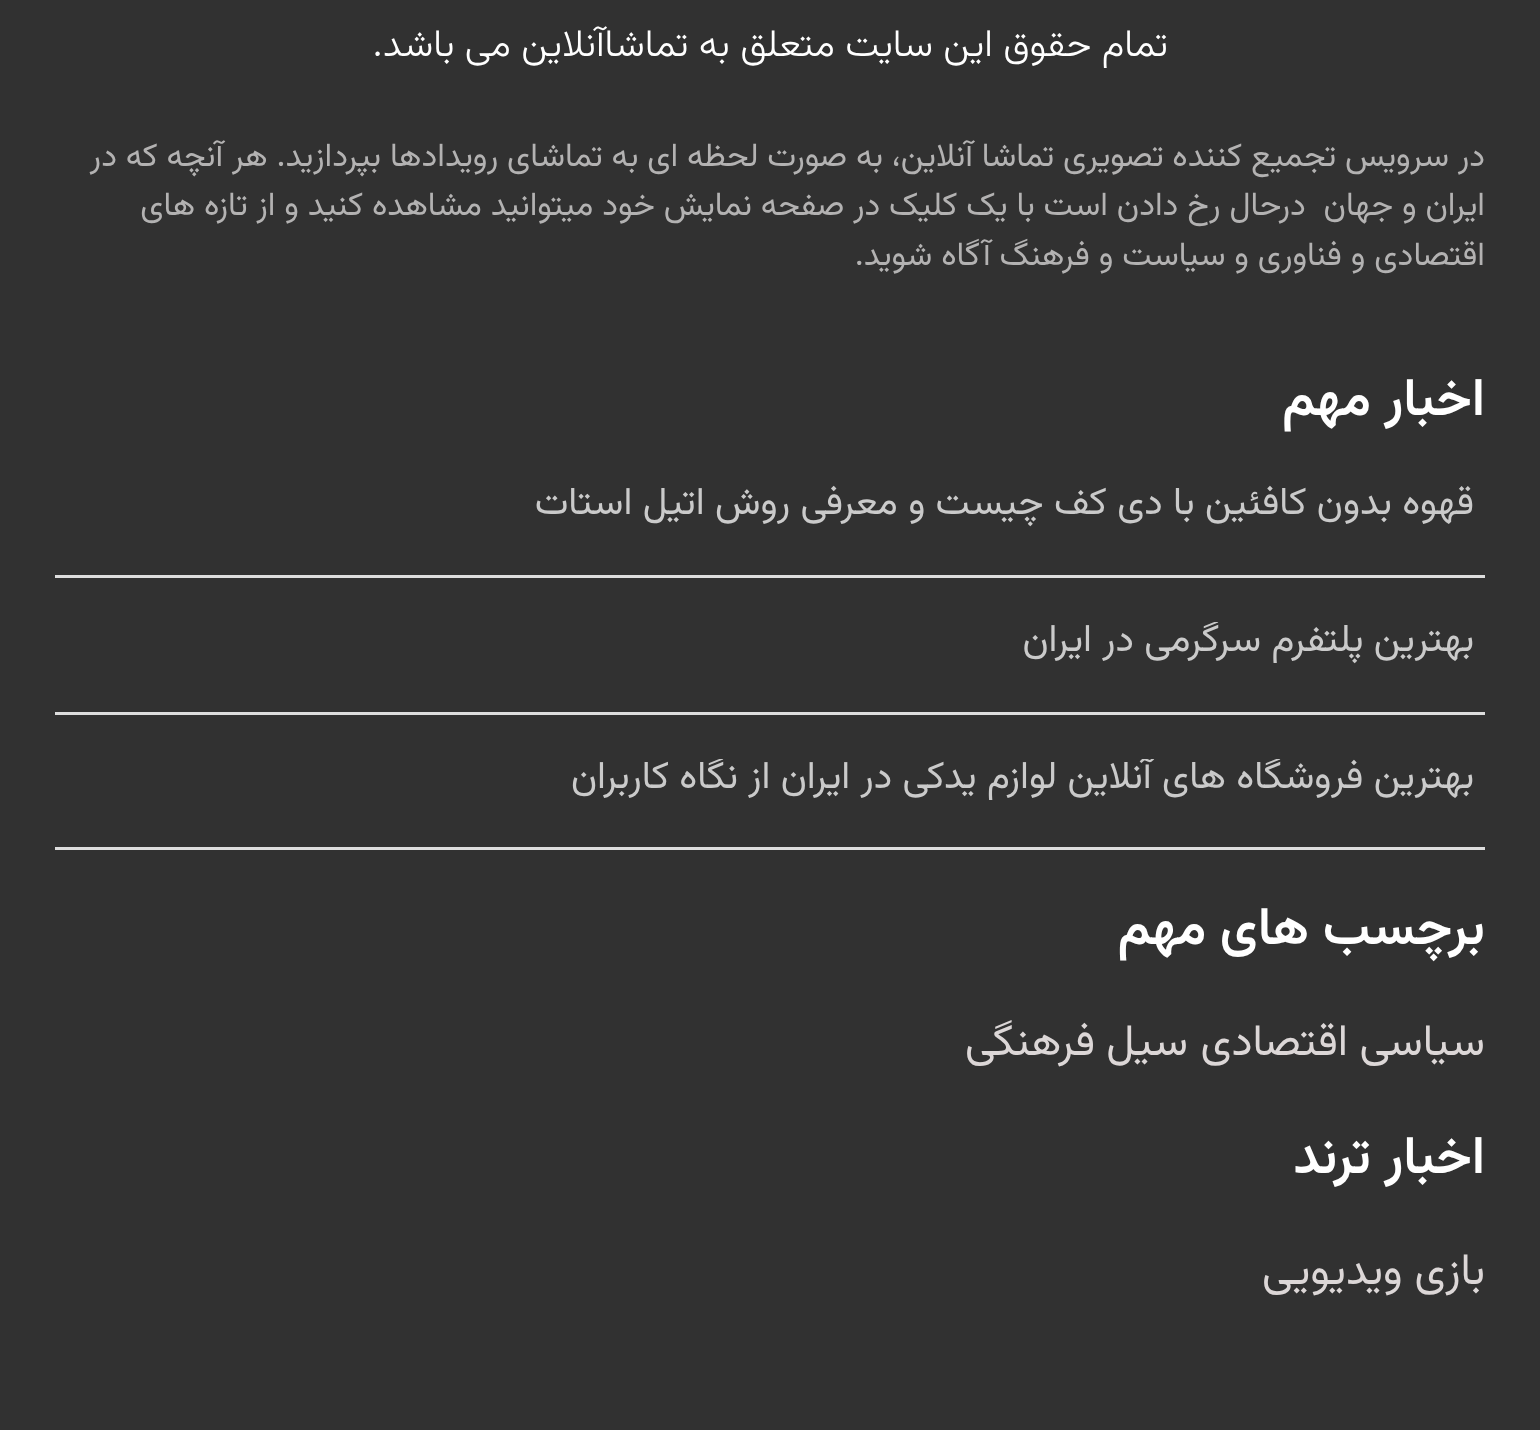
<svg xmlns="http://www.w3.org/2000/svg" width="1540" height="1430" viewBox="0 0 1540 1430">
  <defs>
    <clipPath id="clip1"><rect x="55" y="622" width="1430" height="90"/></clipPath>
    <clipPath id="clip2"><rect x="55" y="759" width="1430" height="88"/></clipPath>
  </defs>
  <rect width="100%" height="100%" fill="rgb(49,49,49)"/>
  <text x="1168" y="56" font-family="Vazirmatn" font-size="38.5" font-weight="300" direction="rtl" fill="rgb(255,255,255)">تمام حقوق این سایت متعلق به تماشاآنلاین می باشد.</text>
  <g font-family="Vazirmatn" font-size="33" direction="rtl" fill="rgb(179,178,178)">
    <text xml:space="preserve"><tspan x="1485" y="166">در سرویس تجمیع کننده تصویری تماشا آنلاین، به صورت لحظه ای به تماشای رویدادها بپردازید. هر آنچه که در</tspan><tspan x="1485" y="215">ایران و جهان  درحال رخ دادن است با یک کلیک در صفحه نمایش خود میتوانید مشاهده کنید و از تازه های</tspan><tspan x="1485" y="265">اقتصادی و فناوری و سیاست و فرهنگ آگاه شوید.</tspan></text>
  </g>
  <text x="1485" y="415" font-family="Vazirmatn" font-size="52.75" font-weight="600" direction="rtl" fill="rgb(255,255,255)">اخبار مهم</text>
  <rect x="55" y="575" width="1430" height="3" fill="rgb(221,221,221)"/>
  <text x="1474" y="514" font-family="Vazirmatn" font-size="38.5" direction="rtl" fill="rgb(202,202,202)">قهوه بدون کافئین با دی کف چیست و معرفی روش اتیل استات</text>
  <rect x="55" y="712" width="1430" height="3" fill="rgb(221,221,221)"/>
  <g clip-path="url(#clip1)">
    <text x="1474" y="651" font-family="Vazirmatn" font-size="38.5" direction="rtl" fill="rgb(202,202,202)">بهترین پلتفرم سرگرمی در ایران</text>
  </g>
  <rect x="55" y="847" width="1430" height="3" fill="rgb(221,221,221)"/>
  <g clip-path="url(#clip2)">
    <text x="1474" y="788" font-family="Vazirmatn" font-size="38.5" direction="rtl" fill="rgb(202,202,202)">بهترین فروشگاه های آنلاین لوازم یدکی در ایران از نگاه کاربران</text>
  </g>
  <text x="1485" y="944" font-family="Vazirmatn" font-size="52.75" font-weight="600" direction="rtl" fill="rgb(255,255,255)">برچسب های مهم</text>
  <g font-family="Vazirmatn" font-size="44" direction="rtl" fill="rgb(220,215,215)">
    <text x="1485" y="1055">سیاسی</text>
    <text x="1348" y="1055">اقتصادی</text>
    <text x="1188" y="1055">سیل</text>
    <text x="1095" y="1055">فرهنگی</text>
  </g>
  <text x="1485" y="1173" font-family="Vazirmatn" font-size="52.75" font-weight="600" direction="rtl" fill="rgb(255,255,255)">اخبار ترند</text>
  <text x="1485" y="1284" font-family="Vazirmatn" font-size="44" direction="rtl" fill="rgb(220,215,215)">بازی ویدیویی</text>
</svg>
